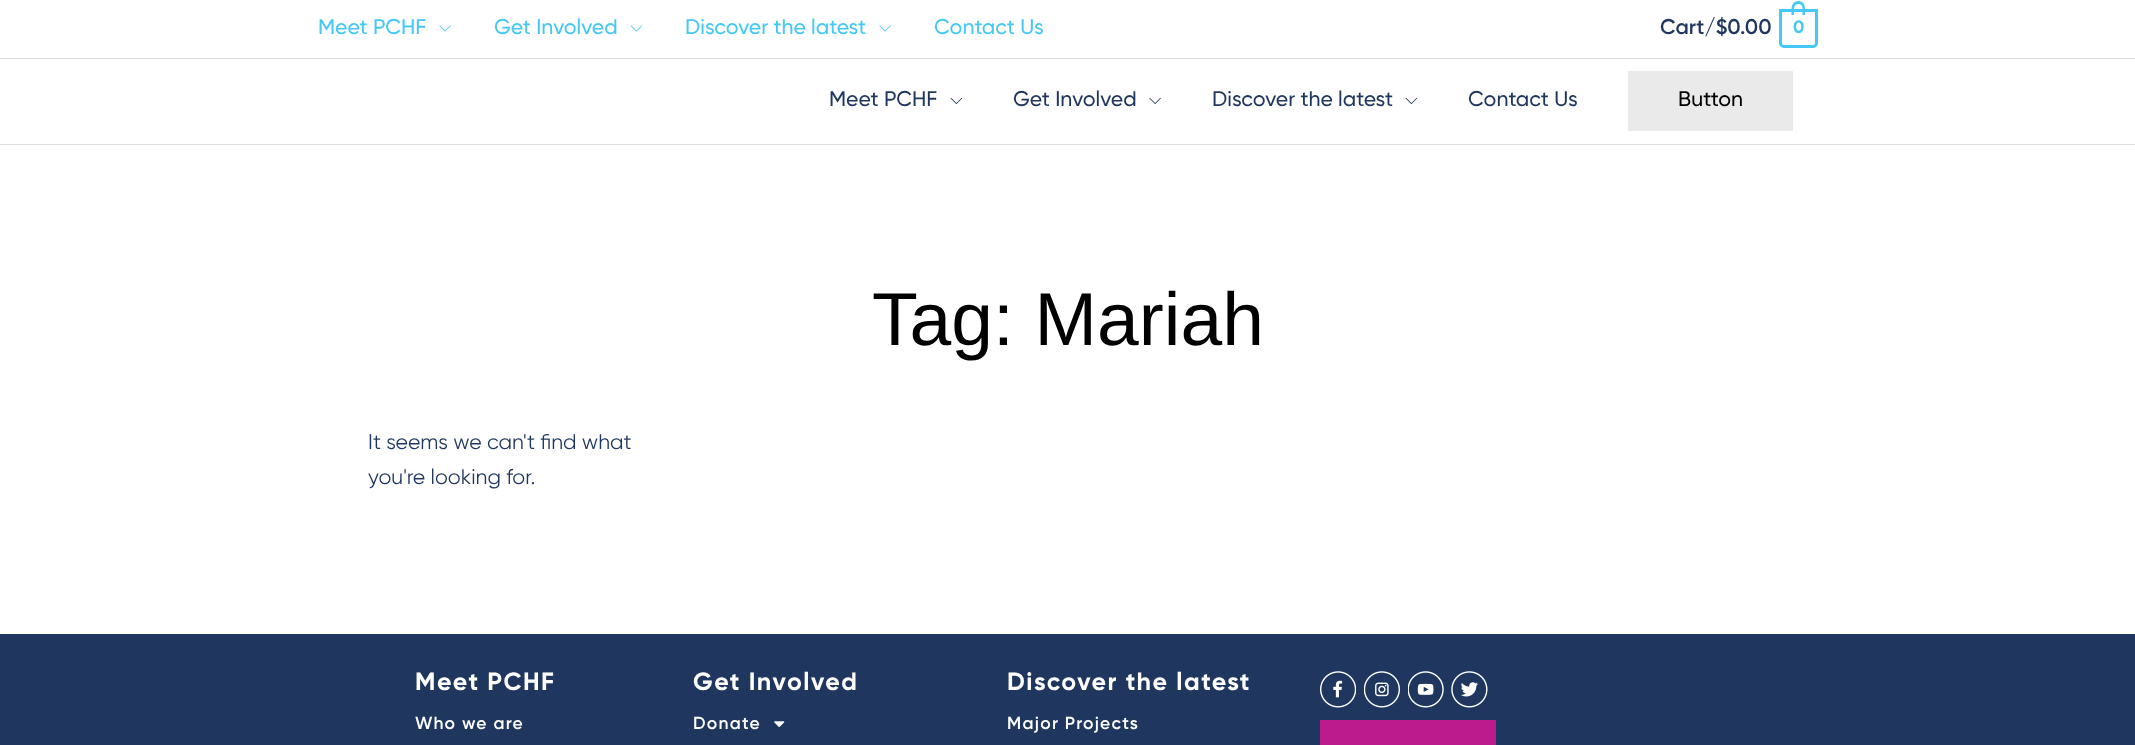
<svg xmlns="http://www.w3.org/2000/svg" width="2135" height="745" viewBox="0 0 2135 745">
  <rect width="100%" height="100%" fill="rgb(255,255,255)"/>
  <rect x="0" y="58" width="2135" height="1" fill="rgb(221,221,221)"/>
  <text x="318" y="34" font-family="Gilroy" font-size="21.25" font-weight="500" fill="rgb(68,200,245)">Meet PCHF</text>
  <image x="439" y="25" width="12" height="7" href="pic1.png"/>
  <text x="494" y="34" font-family="Gilroy" font-size="21.25" font-weight="500" fill="rgb(68,200,245)">Get Involved</text>
  <image x="630" y="25" width="13" height="7" href="pic2.png"/>
  <text x="685" y="34" font-family="Gilroy" font-size="21.25" font-weight="500" fill="rgb(68,200,245)">Discover the latest</text>
  <image x="879" y="25" width="12" height="7" href="pic1.png"/>
  <text x="934" y="34" font-family="Gilroy" font-size="21.25" font-weight="500" fill="rgb(68,200,245)">Contact Us</text>
  <text x="1660" y="34" font-family="Gilroy" font-size="21.25" font-weight="600" fill="rgb(31,54,95)">Cart/$0.00</text>
  <path d="M1780.5 10.5H1816.5V43C1816.5 45 1815 46.5 1813 46.5H1784C1782 46.5 1780.5 45 1780.5 43Z" fill="none" stroke="rgb(68,200,245)" stroke-width="3"/>
  <path d="M1798.5 1C1806 1 1805 9.5 1805 15H1791.5C1791.5 9.5 1790.5 1 1798.5 1ZM1798.5 4C1804 4 1802.5 11.5 1802.5 15H1794C1794 11.5 1792.5 4 1798.5 4Z" fill="rgb(68,200,245)" fill-rule="evenodd"/>
  <text x="1793" y="33" font-family="Gilroy" font-size="18" font-weight="bold" fill="rgb(68,200,245)">0</text>
  <rect x="0" y="144" width="2135" height="1" fill="rgb(221,221,221)"/>
  <text x="829" y="106" font-family="Gilroy" font-size="21.25" font-weight="500" fill="rgb(31,54,95)">Meet PCHF</text>
  <image x="950" y="97" width="13" height="7" href="pic3.png"/>
  <text x="1013" y="106" font-family="Gilroy" font-size="21.25" font-weight="500" fill="rgb(31,54,95)">Get Involved</text>
  <image x="1149" y="97" width="12" height="7" href="pic4.png"/>
  <text x="1212" y="106" font-family="Gilroy" font-size="21.25" font-weight="500" fill="rgb(31,54,95)">Discover the latest</text>
  <image x="1405" y="97" width="13" height="7" href="pic3.png"/>
  <text x="1468" y="106" font-family="Gilroy" font-size="21.25" font-weight="500" fill="rgb(31,54,95)">Contact Us</text>
  <rect x="1628" y="71" width="165" height="60" fill="rgb(234,234,234)"/>
  <text x="1678" y="106" font-family="Gilroy" font-size="21.25" font-weight="500" fill="rgb(0,0,0)">Button</text>
  <text x="872" y="345" font-family="Liberation Sans" font-size="75" fill="rgb(0,0,0)">Tag: Mariah</text>
  <g font-family="Gilroy" font-size="21.25" fill="rgb(31,54,95)">
    <text>
      <tspan x="368" y="449">It seems we can't find what</tspan>
      <tspan x="368" y="484">you're looking for.</tspan>
    </text>
  </g>
  <rect x="0" y="634" width="2135" height="111" fill="rgb(31,54,95)"/>
  <text x="415" y="690" font-family="Gilroy" font-size="25" font-weight="bold" letter-spacing="1.5" fill="rgb(255,255,255)">Meet PCHF</text>
  <text x="415" y="729" font-family="Gilroy" font-size="17.5" font-weight="600" letter-spacing="1.25" fill="rgb(255,255,255)">Who we are</text>
  <text x="693" y="690" font-family="Gilroy" font-size="25" font-weight="bold" letter-spacing="1.5" fill="rgb(255,255,255)">Get Involved</text>
  <text x="693" y="729" font-family="Gilroy" font-size="17.5" font-weight="600" letter-spacing="1.25" fill="rgb(255,255,255)">Donate</text>
  <image x="774" y="721" width="11" height="6" href="pic5.png"/>
  <text x="1007" y="690" font-family="Gilroy" font-size="25" font-weight="bold" letter-spacing="1.5" fill="rgb(255,255,255)">Discover the latest</text>
  <text x="1007" y="729" font-family="Gilroy" font-size="17.5" font-weight="600" letter-spacing="1.25" fill="rgb(255,255,255)">Major Projects</text>
  <image x="1320" y="671" width="36" height="37" href="pic6.png"/>
  <image x="1364" y="671" width="36" height="37" href="pic7.png"/>
  <image x="1408" y="671" width="36" height="37" href="pic8.png"/>
  <image x="1451" y="671" width="37" height="37" href="pic9.png"/>
  <rect x="1320" y="720" width="176" height="25" fill="rgb(187,27,141)"/>
</svg>
